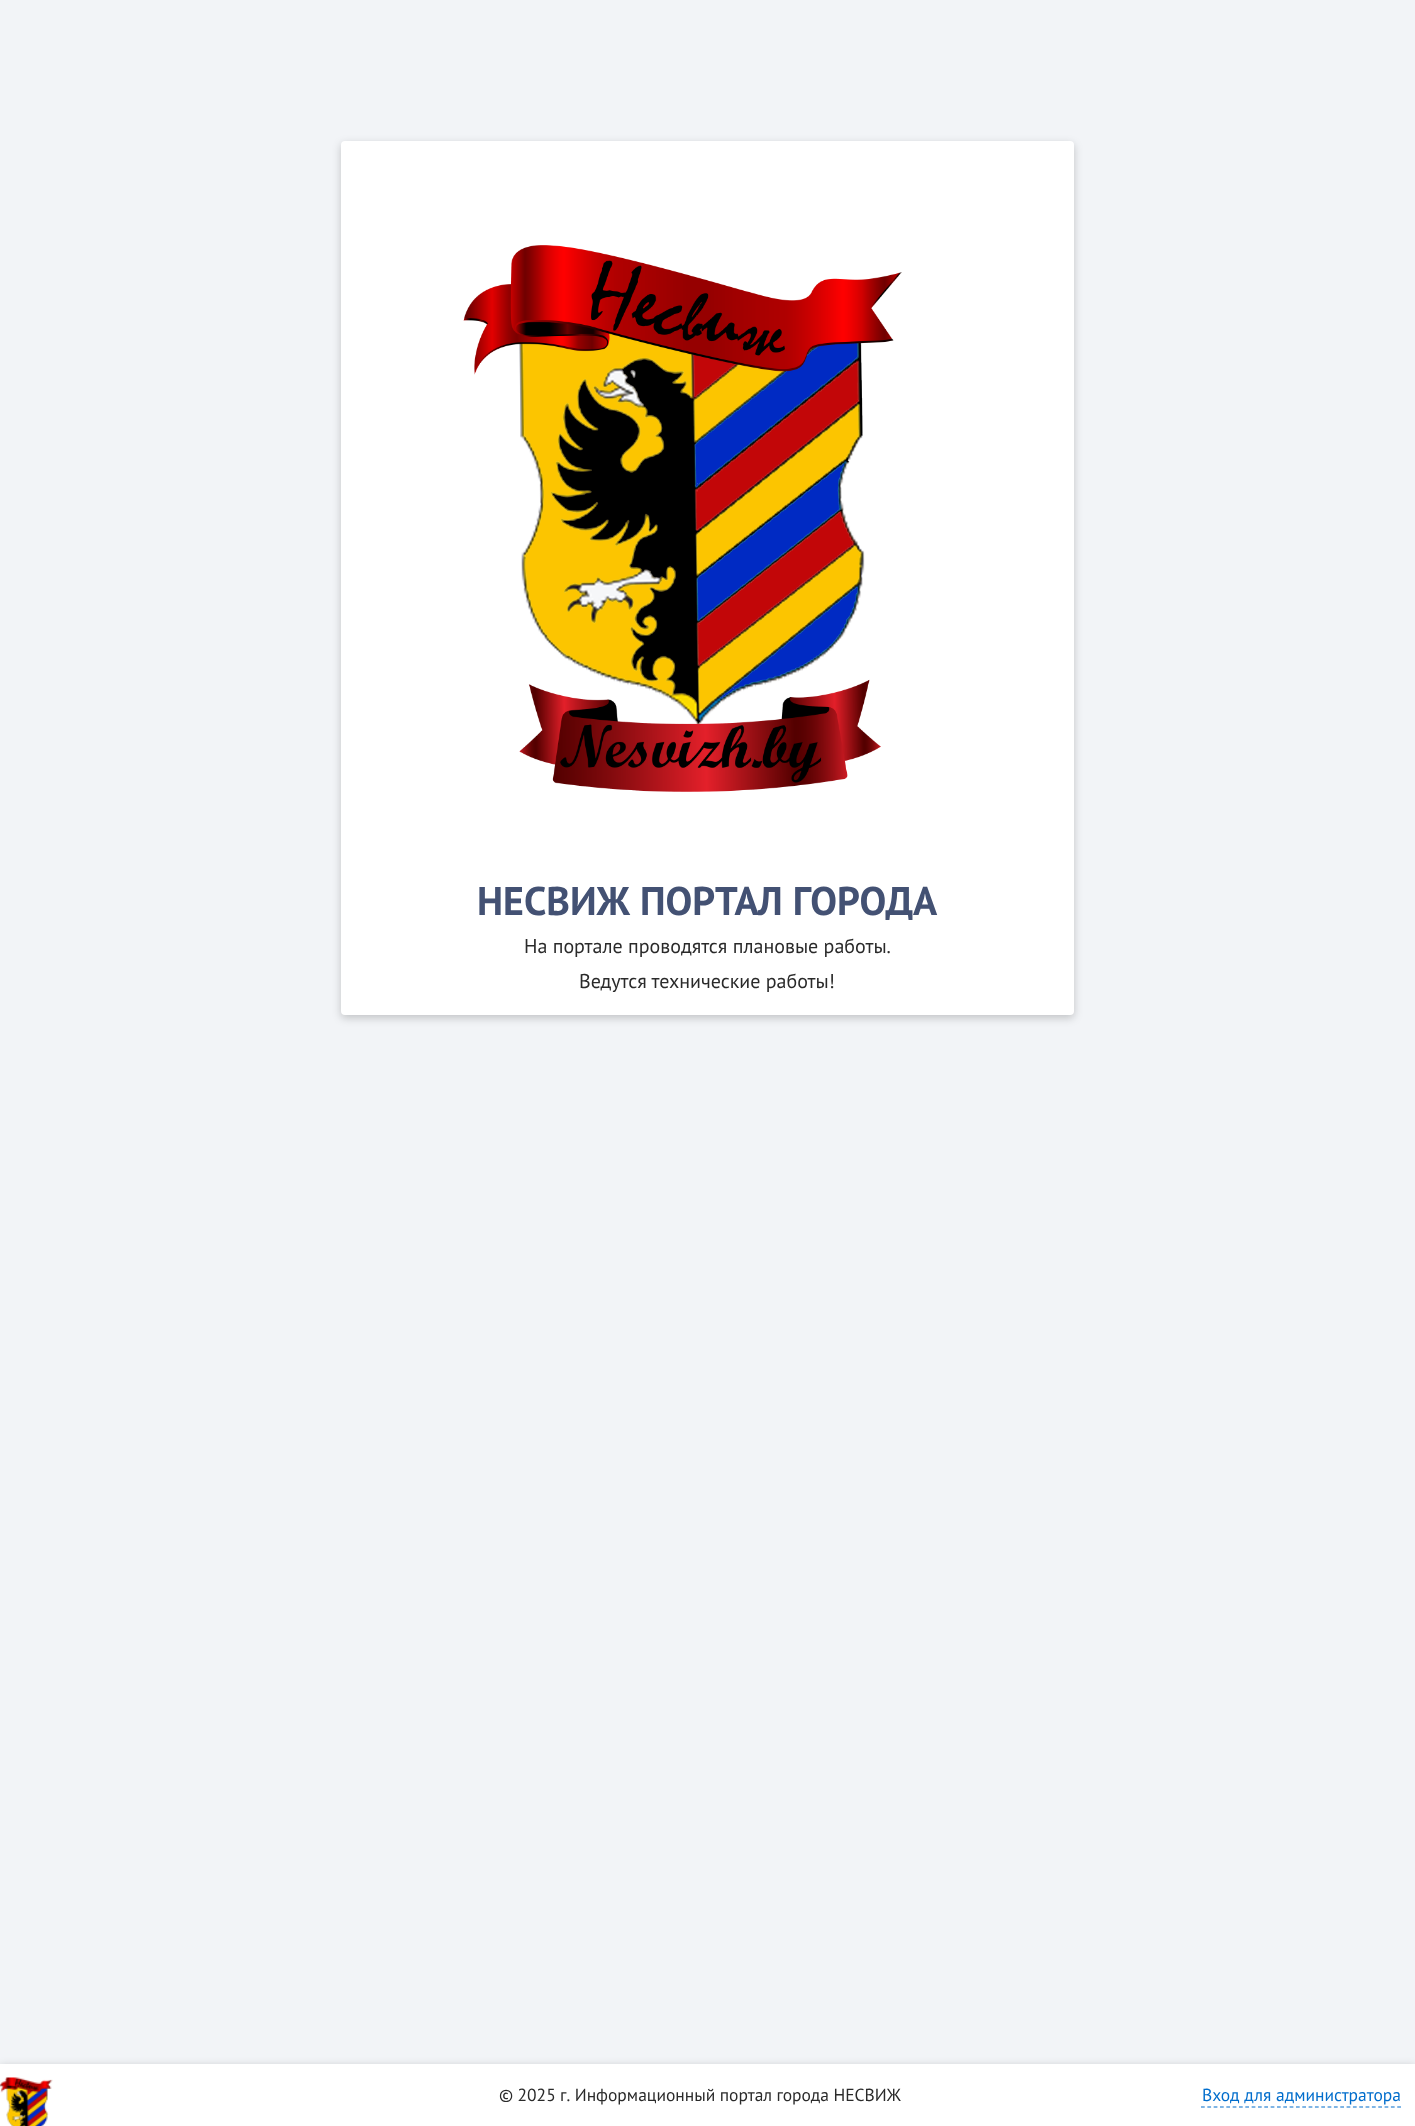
<svg xmlns="http://www.w3.org/2000/svg" width="1415" height="2126" viewBox="0 0 1415 2126">
  <rect width="100%" height="100%" fill="rgb(242,244,247)"/>
  <rect x="341" y="144" width="733" height="874" rx="4" fill="rgba(0,0,0,0.2)" filter="blur(4px)"/>
  <rect x="341" y="141" width="733" height="874" rx="4" fill="rgb(255,255,255)"/>
  <image x="463" y="245" width="439" height="547" href="pic1.png"/>
  <g font-family="PT Sans" font-size="40" font-weight="bold" fill="rgb(67,81,115)">
    <text x="477" y="915">НЕСВИЖ</text>
    <text x="640" y="915">ПОРТАЛ ГОРОДА</text>
  </g>
  <g font-family="PT Sans" font-size="20" fill="rgb(42,42,42)">
    <text x="524" y="953">На портале проводятся плановые работы.</text>
    <text x="579" y="988">Ведутся технические работы!</text>
  </g>
  <rect x="0" y="2066" width="1415" height="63" fill="rgba(0,0,0,0.2)" filter="blur(4px)"/>
  <rect x="0" y="2064" width="1415" height="62" fill="rgb(255,255,255)"/>
  <image x="0" y="2077" width="53" height="49" href="pic2.png"/>
  <text x="499" y="2101" word-spacing="-0.25" font-family="PT Sans" font-size="17.5" fill="rgb(42,42,42)">© 2025 г. Информационный портал города НЕСВИЖ</text>
  <text x="1202" y="2101" font-family="PT Sans" font-size="17.5" fill="rgb(0,109,204)">Вход для администратора</text>
  <path d="M1201 2107H1401" fill="none" stroke="rgb(0,109,204)" stroke-width="1.2" stroke-dasharray="3.75 2.58"/>
</svg>
